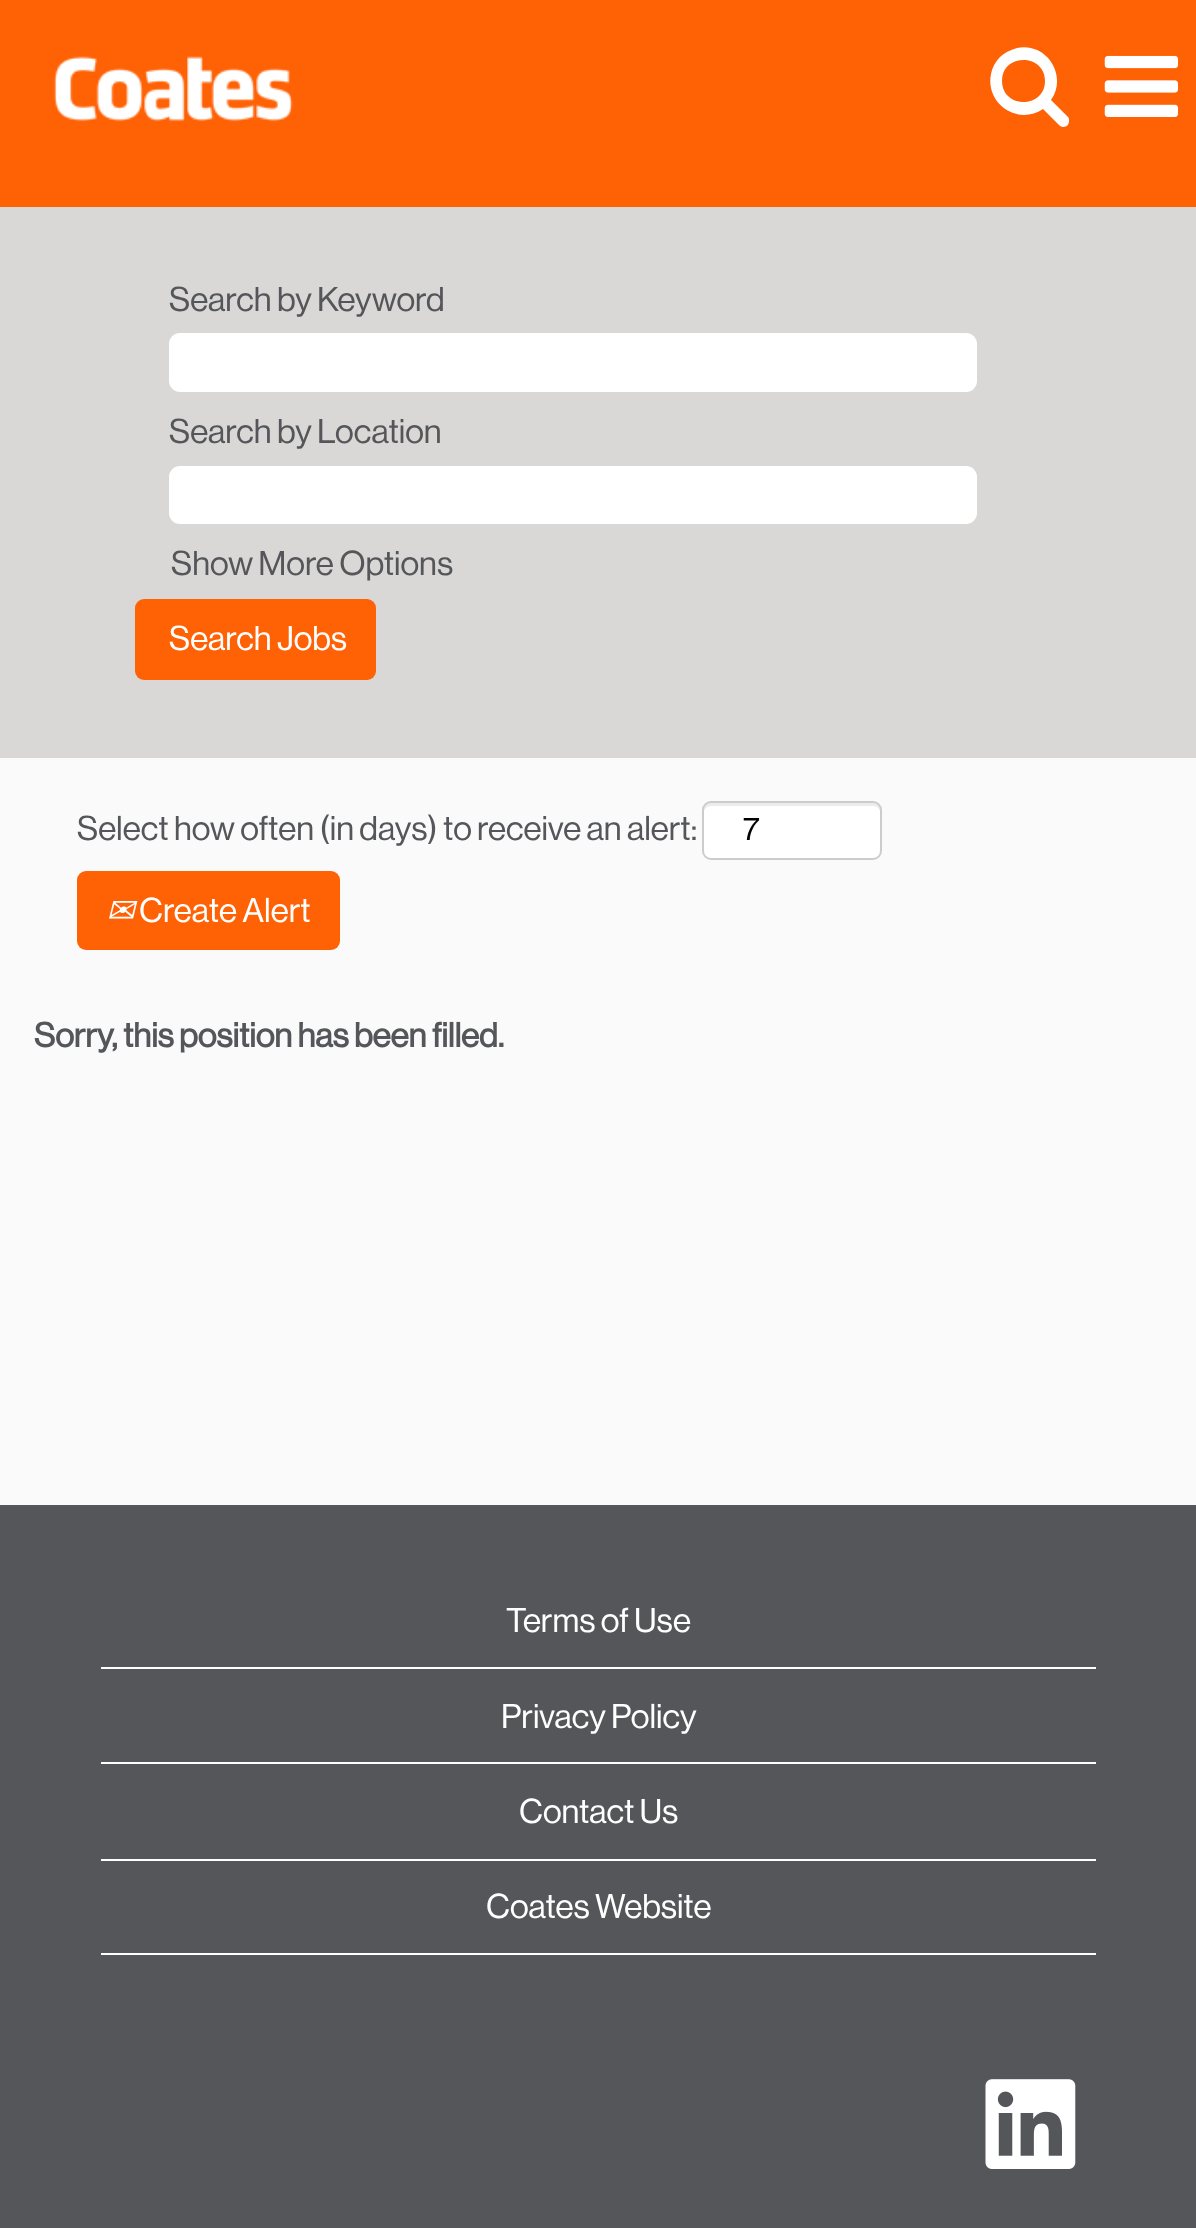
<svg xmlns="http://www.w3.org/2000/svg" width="1196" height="2228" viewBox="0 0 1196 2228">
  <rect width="100%" height="100%" fill="rgb(255,97,5)"/>
  <image x="54" y="56" width="239" height="66" href="pic1.png"/>
  <path d="M1045 81C1045 109 1002 109 1002 81C1002 53 1045 53 1045 81ZM1069 121C1069 119 1069 118 1068 117L1051 100C1068 76 1047 42 1017 48C1010 50 1004 53 1000 57C995 62 992 68 991 74C985 104 1018 126 1043 109L1059 125C1060 126 1062 127 1063 127C1067 127 1069 124 1069 121Z" fill="rgb(255,255,255)"/>
  <image x="1104" y="55" width="75" height="62" href="pic2.png"/>
  <rect x="0" y="758" width="1196" height="747" fill="rgb(250,250,250)"/>
  <rect x="0" y="207" width="1196" height="551" fill="rgb(217,216,214)"/>
  <text x="169" y="311" font-family="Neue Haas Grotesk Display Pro" font-size="33.75" fill="rgb(84,86,90)">Search by Keyword</text>
  <rect x="169" y="333" width="808" height="59" rx="11" fill="rgb(255,255,255)"/>
  <text x="169" y="443" font-family="Neue Haas Grotesk Display Pro" font-size="33.75" fill="rgb(84,86,90)">Search by Location</text>
  <rect x="169" y="466" width="808" height="58" rx="11" fill="rgb(255,255,255)"/>
  <text x="171" y="575" font-family="Neue Haas Grotesk Display Pro" font-size="33.75" fill="rgb(84,86,90)">Show More Options</text>
  <rect x="135" y="599" width="241" height="81" rx="9" fill="rgb(255,97,5)"/>
  <text x="169" y="650" font-family="Neue Haas Grotesk Display Pro" font-size="33.75" fill="rgb(255,255,255)">Search Jobs</text>
  <text x="77" y="840" font-family="Neue Haas Grotesk Display Pro" font-size="33.75" fill="rgb(84,86,90)">Select how often (in days) to receive an alert:</text>
  <rect x="702" y="801" width="180" height="59" rx="9" fill="rgb(255,255,255)"/>
  <path d="M711 806H873C877 806 880 809 880 812V810C880 806 877 803 873 803H711C707 803 704 806 704 810V812C704 809 707 806 711 806Z" fill="rgb(236,236,236)"/>
  <rect x="703" y="802" width="178" height="57" rx="8" fill="none" stroke="rgb(204,204,204)" stroke-width="2"/>
  <text x="743" y="840" font-family="Neue Haas Grotesk Display Pro" font-size="32" fill="rgb(0,0,0)">7</text>
  <rect x="77" y="871" width="263" height="79" rx="9" fill="rgb(255,97,5)"/>
  <text x="106" y="922" font-family="DejaVu Sans" font-size="33.75" font-style="italic" fill="rgb(255,255,255)">✉</text>
  <text x="139" y="922" font-family="Neue Haas Grotesk Display Pro" font-size="33.75" fill="rgb(255,255,255)">Create Alert</text>
  <text x="34" y="1047" font-family="Neue Haas Grotesk Display Pro" font-size="33.75" font-weight="bold" fill="rgb(84,86,90)">Sorry, this position has been filled.</text>
  <rect x="0" y="1505" width="1196" height="723" fill="rgb(84,86,90)"/>
  <rect x="101" y="1667" width="995" height="2" fill="rgb(255,255,255)"/>
  <text x="506" y="1632" font-family="Neue Haas Grotesk Display Pro" font-size="33.75" fill="rgb(255,255,255)">Terms of Use</text>
  <rect x="101" y="1762" width="995" height="2" fill="rgb(255,255,255)"/>
  <text x="501" y="1728" font-family="Neue Haas Grotesk Display Pro" font-size="33.75" fill="rgb(255,255,255)">Privacy Policy</text>
  <rect x="101" y="1859" width="995" height="2" fill="rgb(255,255,255)"/>
  <text x="519" y="1823" font-family="Neue Haas Grotesk Display Pro" font-size="33.75" fill="rgb(255,255,255)">Contact Us</text>
  <rect x="101" y="1953" width="995" height="2" fill="rgb(255,255,255)"/>
  <text x="486" y="1918" font-family="Neue Haas Grotesk Display Pro" font-size="33.75" fill="rgb(255,255,255)">Coates Website</text>
  <image x="985" y="2079" width="91" height="90" href="pic3.png"/>
</svg>
